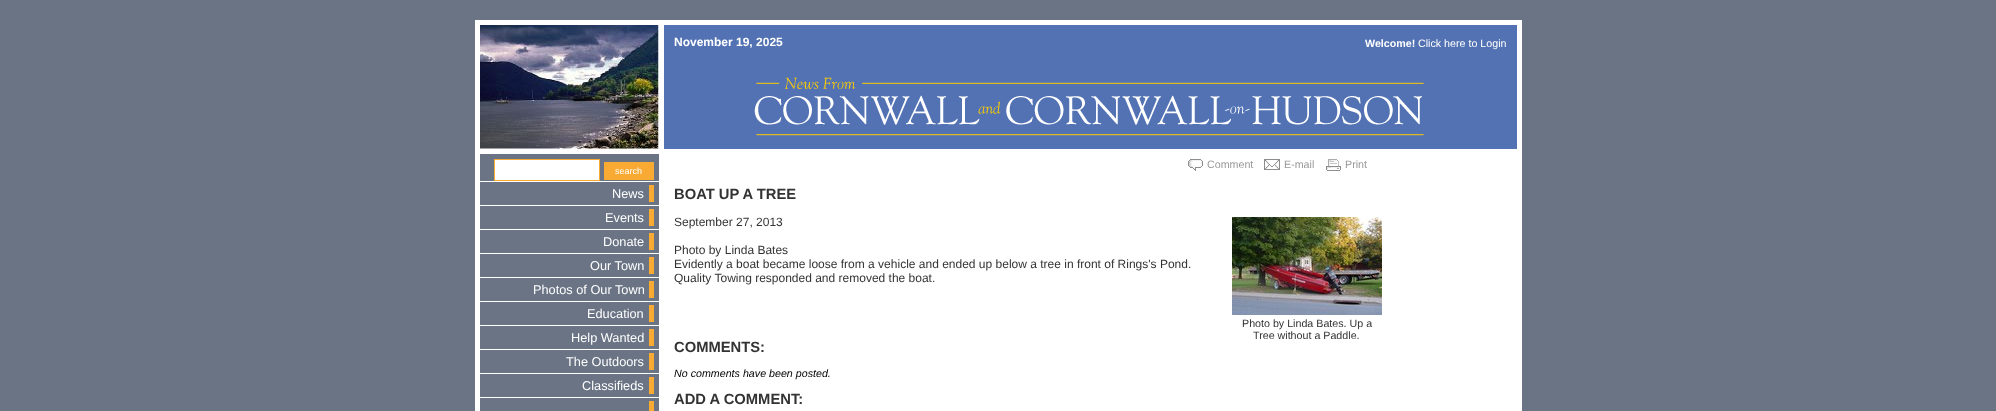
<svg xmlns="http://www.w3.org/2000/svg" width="1996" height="411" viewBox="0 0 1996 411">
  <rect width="100%" height="100%" fill="rgb(106,116,132)"/>
  <rect x="475" y="20" width="1047" height="391" fill="rgb(255,255,255)"/>
  <image x="480" y="25" width="179" height="124" href="pic1.png"/>
  <rect x="664" y="25" width="853" height="124" fill="rgb(82,114,180)"/>
  <text x="674" y="46" font-family="Liberation Sans" font-size="12" font-weight="bold" fill="rgb(255,255,255)">November 19, 2025</text>
  <text x="1365" y="47" font-family="Liberation Sans" font-size="10.7" font-weight="bold" fill="rgb(255,255,255)">Welcome!</text>
  <text x="1418" y="47" font-family="Liberation Sans" font-size="10.7" fill="rgb(255,255,255)">Click here to Login</text>
  <image x="754" y="77" width="670" height="59" href="pic2.png"/>
  <rect x="480" y="154" width="179" height="257" fill="rgb(106,116,132)"/>
  <rect x="494.5" y="159.5" width="105" height="21" fill="rgb(255,255,255)" stroke="rgb(248,170,51)"/>
  <rect x="604" y="162" width="50" height="18" fill="rgb(248,170,51)"/>
  <text x="615" y="174" font-family="Liberation Sans" font-size="9" fill="rgb(255,255,255)">search</text>
  <rect x="480" y="181" width="179" height="1" fill="rgb(255,255,255)"/>
  <text x="612" y="198" font-family="Liberation Sans" font-size="12.75" fill="rgb(255,255,255)">News</text>
  <rect x="649" y="185" width="5" height="17" fill="rgb(248,170,51)"/>
  <rect x="480" y="205" width="179" height="1" fill="rgb(255,255,255)"/>
  <text x="605" y="222" font-family="Liberation Sans" font-size="12.75" fill="rgb(255,255,255)">Events</text>
  <rect x="649" y="209" width="5" height="17" fill="rgb(248,170,51)"/>
  <rect x="480" y="229" width="179" height="1" fill="rgb(255,255,255)"/>
  <text x="603" y="246" font-family="Liberation Sans" font-size="12.75" fill="rgb(255,255,255)">Donate</text>
  <rect x="649" y="233" width="5" height="17" fill="rgb(248,170,51)"/>
  <rect x="480" y="253" width="179" height="1" fill="rgb(255,255,255)"/>
  <text x="590" y="270" font-family="Liberation Sans" font-size="12.75" fill="rgb(255,255,255)">Our Town</text>
  <rect x="649" y="257" width="5" height="17" fill="rgb(248,170,51)"/>
  <rect x="480" y="277" width="179" height="1" fill="rgb(255,255,255)"/>
  <text x="533" y="294" font-family="Liberation Sans" font-size="12.75" fill="rgb(255,255,255)">Photos of Our Town</text>
  <rect x="649" y="281" width="5" height="17" fill="rgb(248,170,51)"/>
  <rect x="480" y="301" width="179" height="1" fill="rgb(255,255,255)"/>
  <text x="587" y="318" font-family="Liberation Sans" font-size="12.75" fill="rgb(255,255,255)">Education</text>
  <rect x="649" y="305" width="5" height="17" fill="rgb(248,170,51)"/>
  <rect x="480" y="325" width="179" height="1" fill="rgb(255,255,255)"/>
  <text x="571" y="342" font-family="Liberation Sans" font-size="12.75" fill="rgb(255,255,255)">Help Wanted</text>
  <rect x="649" y="329" width="5" height="17" fill="rgb(248,170,51)"/>
  <rect x="480" y="349" width="179" height="1" fill="rgb(255,255,255)"/>
  <text x="566" y="366" font-family="Liberation Sans" font-size="12.75" fill="rgb(255,255,255)">The Outdoors</text>
  <rect x="649" y="353" width="5" height="17" fill="rgb(248,170,51)"/>
  <rect x="480" y="373" width="179" height="1" fill="rgb(255,255,255)"/>
  <text x="582" y="390" font-family="Liberation Sans" font-size="12.75" fill="rgb(255,255,255)">Classifieds</text>
  <rect x="649" y="377" width="5" height="17" fill="rgb(248,170,51)"/>
  <rect x="480" y="397" width="179" height="1" fill="rgb(255,255,255)"/>
  <rect x="649" y="401" width="5" height="10" fill="rgb(248,170,51)"/>
  <image x="1188" y="159" width="15" height="12" href="pic3.png"/>
  <text x="1207" y="168" font-family="Liberation Sans" font-size="10.7" fill="rgb(153,153,153)">Comment</text>
  <image x="1264" y="159" width="16" height="11" href="pic4.png"/>
  <text x="1284" y="168" font-family="Liberation Sans" font-size="10.7" fill="rgb(153,153,153)">E-mail</text>
  <image x="1326" y="159" width="15" height="12" href="pic5.png"/>
  <text x="1345" y="168" font-family="Liberation Sans" font-size="10.7" fill="rgb(153,153,153)">Print</text>
  <text x="674" y="199" font-family="Liberation Sans" font-size="14.75" font-weight="bold" fill="rgb(51,51,51)">BOAT UP A TREE</text>
  <g font-family="Liberation Sans" font-size="12" fill="rgb(51,51,51)">
    <text x="674" y="226">September 27, 2013</text>
    <text>
      <tspan x="674" y="254">Photo by Linda Bates</tspan>
      <tspan x="674" y="268">Evidently a boat became loose from a vehicle and ended up below a tree in front of Rings's Pond.</tspan>
      <tspan x="674" y="282">Quality Towing responded and removed the boat.</tspan>
    </text>
  </g>
  <image x="1232" y="217" width="150" height="98" href="pic6.png"/>
  <g font-family="Liberation Sans" font-size="10.7" fill="rgb(51,51,51)">
    <text x="1242" y="327">Photo by Linda Bates. Up a</text>
    <text x="1253" y="339">Tree without a Paddle.</text>
  </g>
  <text x="674" y="352" font-family="Liberation Sans" font-size="14.75" font-weight="bold" fill="rgb(51,51,51)">COMMENTS:</text>
  <text x="674" y="377" font-family="Liberation Sans" font-size="10.7" font-style="italic" fill="rgb(0,0,0)">No comments have been posted.</text>
  <text x="674" y="404" font-family="Liberation Sans" font-size="14.75" font-weight="bold" fill="rgb(51,51,51)">ADD A COMMENT:</text>
</svg>
